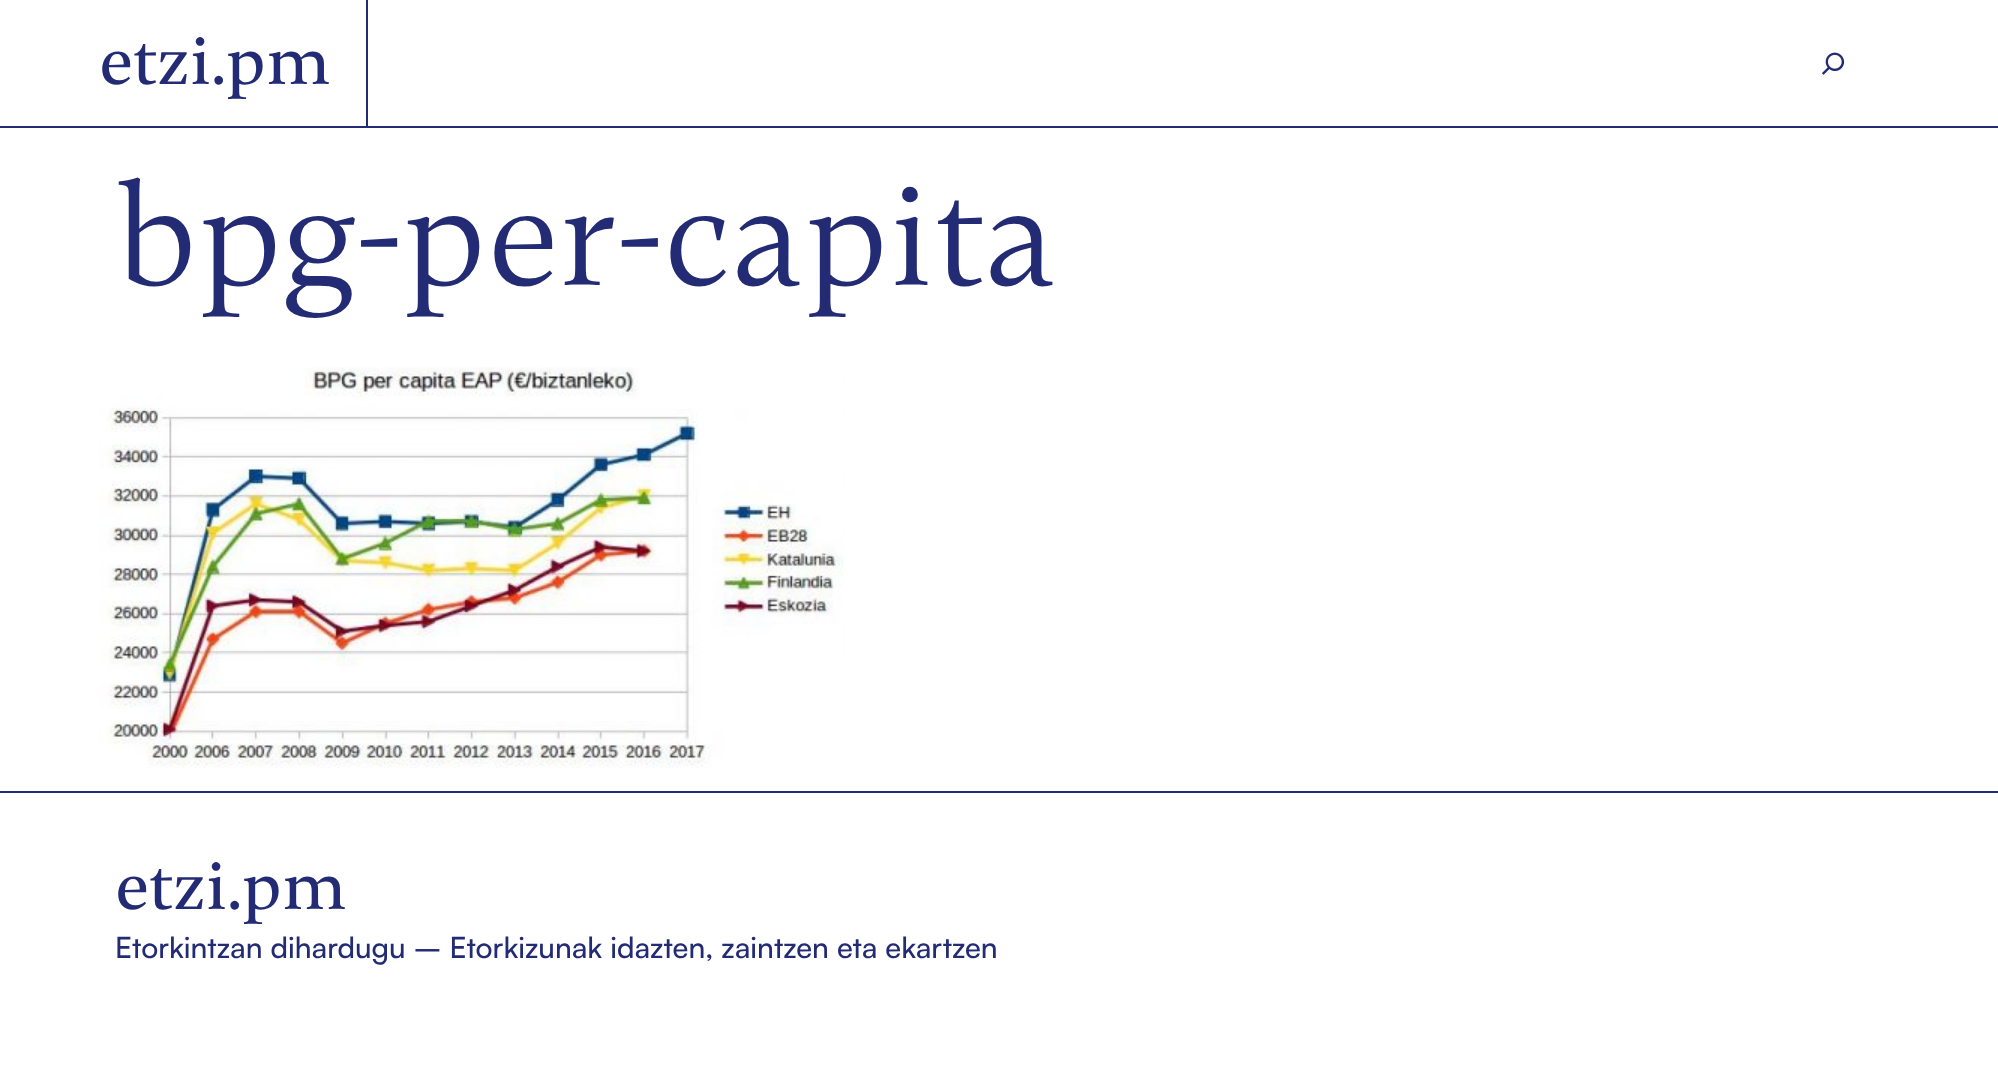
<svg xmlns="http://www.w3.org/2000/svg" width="1998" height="1082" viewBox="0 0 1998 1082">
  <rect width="100%" height="100%" fill="rgb(255,255,255)"/>
  <rect x="0" y="126" width="1998" height="2" fill="rgb(34,43,116)"/>
  <text x="99" y="84" font-family="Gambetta" font-size="70" font-weight="500" fill="rgb(34,43,116)">etzi.pm</text>
  <rect x="366" y="0" width="2" height="126" fill="rgb(34,43,116)"/>
  <image x="1822" y="52" width="23" height="23" href="pic1.png"/>
  <text x="115" y="285" font-family="Gambetta" font-size="149.25" fill="rgb(34,43,116)">bpg-per-capita</text>
  <image x="99" y="367" width="745" height="401" href="pic2.png"/>
  <rect x="0" y="791" width="1998" height="2" fill="rgb(34,43,116)"/>
  <text x="115" y="909" font-family="Gambetta" font-size="70" font-weight="500" fill="rgb(34,43,116)">etzi.pm</text>
  <text x="115" y="958" font-family="Satoshi" font-size="29.25" font-weight="500" fill="rgb(34,43,116)">Etorkintzan dihardugu – Etorkizunak idazten, zaintzen eta ekartzen</text>
</svg>
